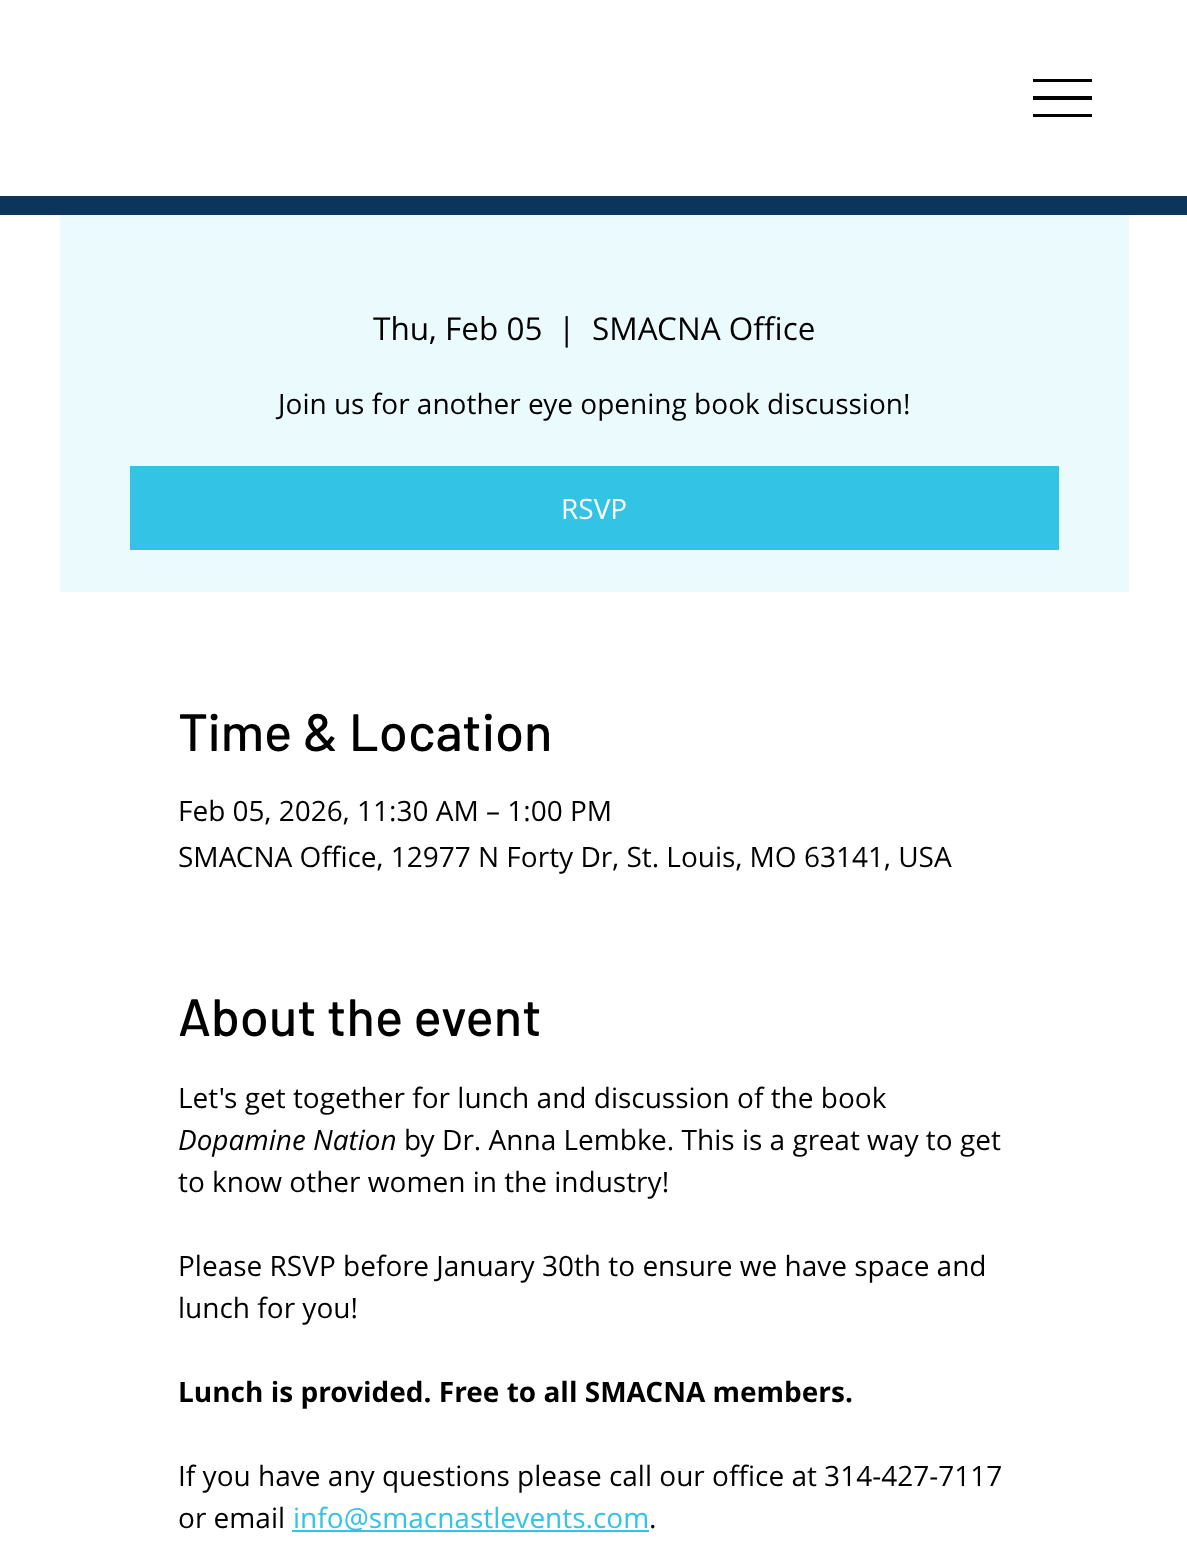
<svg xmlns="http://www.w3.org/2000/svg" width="1187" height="1544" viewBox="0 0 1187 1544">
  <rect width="100%" height="100%" fill="rgb(255,255,255)"/>
  <rect x="1033" y="79" width="59" height="3" fill="rgb(0,0,0)"/>
  <rect x="1033" y="96" width="59" height="4" fill="rgb(0,0,0)"/>
  <rect x="1033" y="114" width="59" height="3" fill="rgb(0,0,0)"/>
  <rect x="0" y="196" width="1187" height="19" fill="rgb(11,53,93)"/>
  <rect x="60" y="215" width="1069" height="377" fill="rgb(235,250,253)"/>
  <g font-family="Open Sans" font-size="31.5" fill="rgb(0,0,0)">
    <text x="373" y="340">Thu, Feb 05</text>
    <text x="558" y="340">|</text>
    <text x="592" y="340">SMACNA Office</text>
  </g>
  <text x="278" y="414" font-family="Open Sans" font-size="28" fill="rgb(0,0,0)">Join us for another eye opening book discussion!</text>
  <rect x="130" y="466" width="929" height="84" fill="rgb(51,195,229)"/>
  <text x="561" y="519" font-family="Open Sans" font-size="28" fill="rgb(255,255,255)">RSVP</text>
  <text x="178" y="751" font-family="Barlow" font-size="52.5" font-weight="500" fill="rgb(0,0,0)">Time &amp; Location</text>
  <g font-family="Open Sans" font-size="28" fill="rgb(0,0,0)">
    <text>
      <tspan x="178" y="821">Feb 05, 2026, 11:30 AM – 1:00 PM</tspan>
      <tspan x="178" y="867">SMACNA Office, 12977 N Forty Dr, St. Louis, MO 63141, USA</tspan>
    </text>
  </g>
  <text x="178" y="1036" font-family="Barlow" font-size="52.5" font-weight="500" fill="rgb(0,0,0)">About the event</text>
  <text x="178" y="1108" font-family="Open Sans" font-size="28" fill="rgb(0,0,0)">Let's get together for lunch and discussion of the book</text>
  <text x="178" y="1150" font-family="Open Sans" font-size="28" font-style="italic" fill="rgb(0,0,0)">Dopamine Nation</text>
  <g font-family="Open Sans" font-size="28" fill="rgb(0,0,0)">
    <text x="404" y="1150">by Dr. Anna Lembke. This is a great way to get</text>
    <text x="178" y="1192">to know other women in the industry!</text>
    <text>
      <tspan x="178" y="1276">Please RSVP before January 30th to ensure we have space and</tspan>
      <tspan x="178" y="1318">lunch for you!</tspan>
    </text>
  </g>
  <text x="178" y="1402" font-family="Open Sans" font-size="28" font-weight="bold" fill="rgb(0,0,0)">Lunch is provided. Free to all SMACNA members.</text>
  <g font-family="Open Sans" font-size="28" fill="rgb(0,0,0)">
    <text>
      <tspan x="178" y="1486">If you have any questions please call our office at 314-427-7117</tspan>
      <tspan x="178" y="1528">or email</tspan>
    </text>
  </g>
  <rect x="292" y="1530" width="357" height="2" fill="rgb(51,195,229)"/>
  <text x="293" y="1528" font-family="Open Sans" font-size="28" fill="rgb(51,195,229)">info@smacnastlevents.com</text>
  <text x="649" y="1528" font-family="Open Sans" font-size="28" fill="rgb(0,0,0)">.</text>
</svg>
